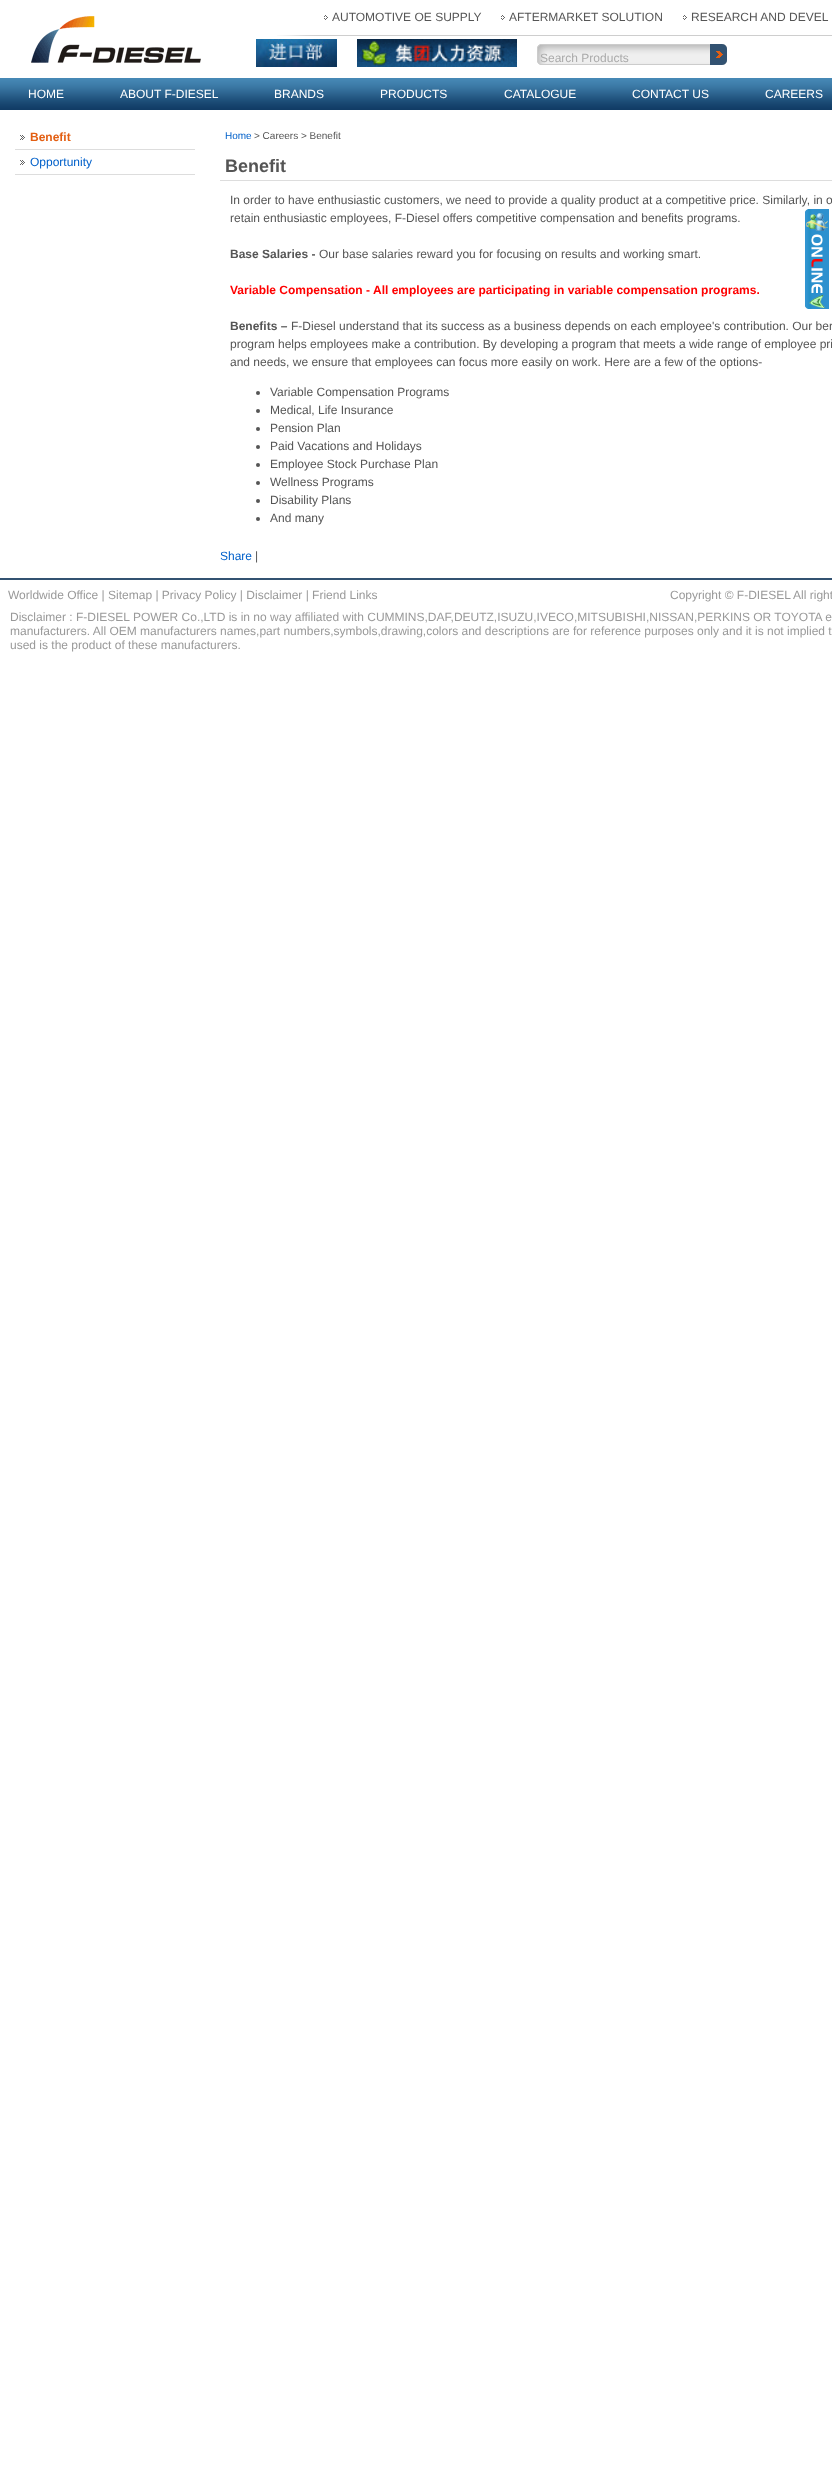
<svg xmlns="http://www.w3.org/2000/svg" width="832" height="2484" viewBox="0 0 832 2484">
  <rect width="100%" height="100%" fill="rgb(255,255,255)"/>
  <image x="31" y="16" width="170" height="47" href="pic1.png"/>
  <image x="277" y="35" width="555" height="1" href="pic2.png"/>
  <image x="324" y="15" width="4" height="5" href="pic3.png"/>
  <text x="332" y="21" font-family="Liberation Sans" font-size="12" fill="rgb(85,85,85)">AUTOMOTIVE OE SUPPLY</text>
  <image x="501" y="15" width="4" height="5" href="pic3.png"/>
  <text x="509" y="21" font-family="Liberation Sans" font-size="12" fill="rgb(85,85,85)">AFTERMARKET SOLUTION</text>
  <image x="683" y="15" width="4" height="5" href="pic3.png"/>
  <text x="691" y="21" font-family="Liberation Sans" font-size="12" fill="rgb(85,85,85)">RESEARCH AND DEVEL</text>
  <image x="256" y="39" width="81" height="28" href="pic4.png"/>
  <image x="357" y="39" width="160" height="28" href="pic5.png"/>
  <image x="537" y="44" width="173" height="21" href="pic6.png"/>
  <text x="540" y="62" font-family="Liberation Sans" font-size="12" fill="rgb(170,170,170)">Search Products</text>
  <image x="710" y="44" width="17" height="21" href="pic7.png"/>
  <image x="0" y="78" width="832" height="32" href="pic8.png"/>
  <g font-family="Liberation Sans" font-size="12" fill="rgb(255,255,255)">
    <text x="28" y="98">HOME</text>
    <text x="120" y="98">ABOUT F-DIESEL</text>
    <text x="274" y="98">BRANDS</text>
    <text x="380" y="98">PRODUCTS</text>
    <text x="504" y="98">CATALOGUE</text>
    <text x="632" y="98">CONTACT US</text>
    <text x="765" y="98">CAREERS</text>
  </g>
  <image x="20" y="135" width="5" height="5" href="pic9.png"/>
  <rect x="15" y="149" width="180" height="1" fill="rgb(221,221,221)"/>
  <text x="30" y="141" font-family="Liberation Sans" font-size="12" font-weight="bold" fill="rgb(227,95,19)">Benefit</text>
  <image x="20" y="160" width="5" height="5" href="pic9.png"/>
  <rect x="15" y="174" width="180" height="1" fill="rgb(221,221,221)"/>
  <text x="30" y="166" font-family="Liberation Sans" font-size="12" fill="rgb(0,96,202)">Opportunity</text>
  <text x="225" y="139" font-family="Liberation Sans" font-size="10" fill="rgb(0,96,202)">Home</text>
  <text x="254" y="139" font-family="Liberation Sans" font-size="10" fill="rgb(85,85,85)">&gt; Careers &gt; Benefit</text>
  <rect x="220" y="180" width="612" height="1" fill="rgb(221,221,221)"/>
  <text x="225" y="172" font-family="Liberation Sans" font-size="18" font-weight="bold" fill="rgb(85,85,85)">Benefit</text>
  <g font-family="Liberation Sans" font-size="12" fill="rgb(85,85,85)">
    <text>
      <tspan x="230" y="204">In order to have enthusiastic customers, we need to provide a quality product at a competitive price. Similarly, in o</tspan>
      <tspan x="230" y="222">retain enthusiastic employees, F-Diesel offers competitive compensation and benefits programs.</tspan>
    </text>
  </g>
  <text x="230" y="258" font-family="Liberation Sans" font-size="12" font-weight="bold" fill="rgb(85,85,85)">Base Salaries -</text>
  <text x="319" y="258" font-family="Liberation Sans" font-size="12" fill="rgb(85,85,85)">Our base salaries reward you for focusing on results and working smart.</text>
  <g font-family="Liberation Sans" font-size="12" font-weight="bold" fill="rgb(255,0,0)">
    <text x="230" y="294">Variable Compensation -</text>
    <text x="373" y="294">All employees are participating in variable compensation programs.</text>
  </g>
  <text x="230" y="330" font-family="Liberation Sans" font-size="12" font-weight="bold" fill="rgb(85,85,85)">Benefits –</text>
  <g font-family="Liberation Sans" font-size="12" fill="rgb(85,85,85)">
    <text x="291" y="330">F-Diesel understand that its success as a business depends on each employee's contribution. Our ben</text>
    <text>
      <tspan x="230" y="348">program helps employees make a contribution. By developing a program that meets a wide range of employee pri</tspan>
      <tspan x="230" y="366">and needs, we ensure that employees can focus more easily on work. Here are a few of the options-</tspan>
    </text>
  </g>
  <circle cx="258" cy="393" r="2" fill="rgb(85,85,85)"/>
  <text x="270" y="396" font-family="Liberation Sans" font-size="12" fill="rgb(85,85,85)">Variable Compensation Programs</text>
  <circle cx="258" cy="411" r="2" fill="rgb(85,85,85)"/>
  <text x="270" y="414" font-family="Liberation Sans" font-size="12" fill="rgb(85,85,85)">Medical, Life Insurance</text>
  <circle cx="258" cy="429" r="2" fill="rgb(85,85,85)"/>
  <text x="270" y="432" font-family="Liberation Sans" font-size="12" fill="rgb(85,85,85)">Pension Plan</text>
  <circle cx="258" cy="447" r="2" fill="rgb(85,85,85)"/>
  <text x="270" y="450" font-family="Liberation Sans" font-size="12" fill="rgb(85,85,85)">Paid Vacations and Holidays</text>
  <circle cx="258" cy="465" r="2" fill="rgb(85,85,85)"/>
  <text x="270" y="468" font-family="Liberation Sans" font-size="12" fill="rgb(85,85,85)">Employee Stock Purchase Plan</text>
  <circle cx="258" cy="483" r="2" fill="rgb(85,85,85)"/>
  <text x="270" y="486" font-family="Liberation Sans" font-size="12" fill="rgb(85,85,85)">Wellness Programs</text>
  <circle cx="258" cy="501" r="2" fill="rgb(85,85,85)"/>
  <text x="270" y="504" font-family="Liberation Sans" font-size="12" fill="rgb(85,85,85)">Disability Plans</text>
  <circle cx="258" cy="519" r="2" fill="rgb(85,85,85)"/>
  <text x="270" y="522" font-family="Liberation Sans" font-size="12" fill="rgb(85,85,85)">And many</text>
  <text x="220" y="560" font-family="Liberation Sans" font-size="12" fill="rgb(0,96,202)">Share</text>
  <text x="255" y="560" font-family="Liberation Sans" font-size="12" fill="rgb(85,85,85)">|</text>
  <rect x="0" y="578" width="832" height="2" fill="rgb(51,82,113)"/>
  <g font-family="Liberation Sans" font-size="12" fill="rgb(153,153,153)">
    <text x="8" y="599">Worldwide Office | Sitemap | Privacy Policy | Disclaimer | Friend Links</text>
    <text x="670" y="599">Copyright © F-DIESEL All right</text>
    <text>
      <tspan x="10" y="621">Disclaimer : F-DIESEL POWER Co.,LTD is in no way affiliated with CUMMINS,DAF,DEUTZ,ISUZU,IVECO,MITSUBISHI,NISSAN,PERKINS OR TOYOTA e</tspan>
      <tspan x="10" y="635">manufacturers. All OEM manufacturers names,part numbers,symbols,drawing,colors and descriptions are for reference purposes only and it is not implied t</tspan>
      <tspan x="10" y="649">used is the product of these manufacturers.</tspan>
    </text>
  </g>
  <image x="805" y="209" width="24" height="100" href="pic10.png"/>
</svg>
